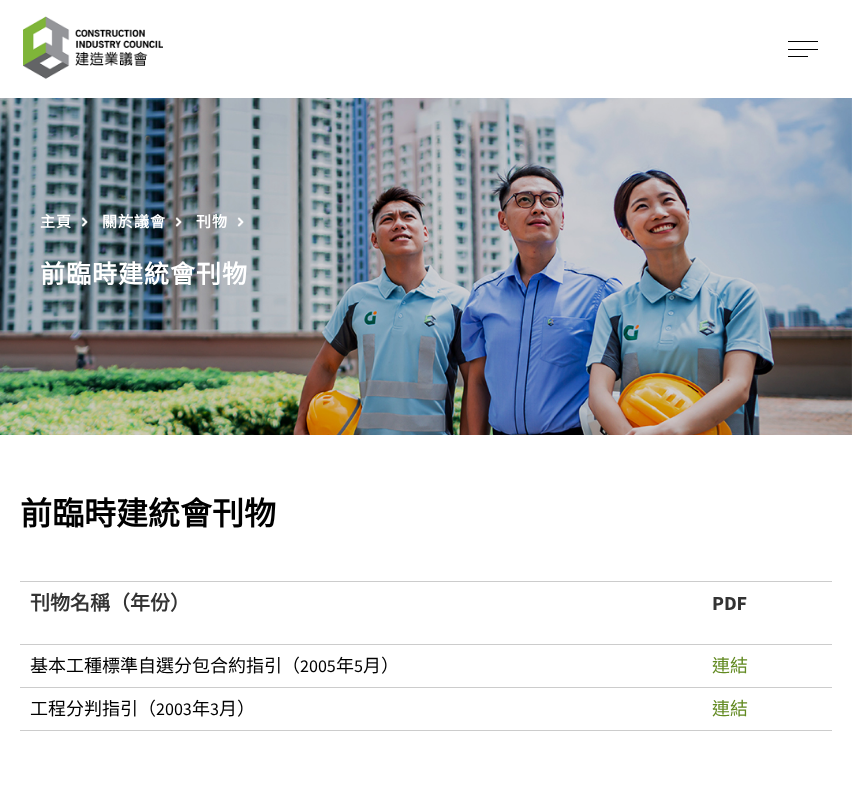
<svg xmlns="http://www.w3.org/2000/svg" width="852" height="794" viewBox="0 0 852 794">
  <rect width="100%" height="100%" fill="rgb(255,255,255)"/>
  <image x="23" y="16" width="140" height="63" href="pic1.png"/>
  <rect x="788" y="41" width="30" height="1" fill="rgb(0,0,0)"/>
  <rect x="788" y="49" width="30" height="1" fill="rgb(0,0,0)"/>
  <rect x="788" y="56" width="20" height="1" fill="rgb(0,0,0)"/>
  <image x="0" y="98" width="852" height="337" href="pic2.png"/>
  <image x="81" y="217" width="7" height="10" href="pic3.png"/>
  <text x="40" y="227" font-family="Noto Sans CJK HK" font-size="15" font-weight="bold" letter-spacing="1" fill="rgb(255,255,255)">主頁</text>
  <image x="175" y="217" width="7" height="10" href="pic4.png"/>
  <text x="102" y="227" font-family="Noto Sans CJK HK" font-size="15" font-weight="bold" letter-spacing="1" fill="rgb(255,255,255)">關於議會</text>
  <image x="237" y="217" width="7" height="10" href="pic5.png"/>
  <text x="196" y="227" font-family="Noto Sans CJK HK" font-size="15" font-weight="bold" letter-spacing="1" fill="rgb(255,255,255)">刊物</text>
  <text x="40" y="283" font-family="Noto Sans CJK HK" font-size="25" font-weight="bold" letter-spacing="1" fill="rgb(255,255,255)">前臨時建統會刊物</text>
  <text x="20" y="525" font-family="Noto Sans CJK HK" font-size="32" font-weight="bold" fill="rgb(0,0,0)">前臨時建統會刊物</text>
  <text x="30" y="610" font-family="Noto Sans CJK HK" font-size="20" font-weight="bold" fill="rgb(51,51,51)">刊物名稱（年份）</text>
  <rect x="20" y="581" width="812" height="1" fill="rgb(204,204,204)"/>
  <rect x="20" y="644" width="812" height="1" fill="rgb(204,204,204)"/>
  <text x="712" y="610" font-family="Source Sans Pro" font-size="20" font-weight="bold" fill="rgb(51,51,51)">PDF</text>
  <text x="30" y="672" font-family="Noto Sans CJK HK" font-size="18" fill="rgb(0,0,0)">基本工種標準自選分包合約指引（</text>
  <text x="300" y="672" font-family="Source Sans Pro" font-size="18" fill="rgb(0,0,0)">2005</text>
  <text x="336" y="672" font-family="Noto Sans CJK HK" font-size="18" fill="rgb(0,0,0)">年</text>
  <text x="354" y="672" font-family="Source Sans Pro" font-size="18" fill="rgb(0,0,0)">5</text>
  <text x="363" y="672" font-family="Noto Sans CJK HK" font-size="18" fill="rgb(0,0,0)">月）</text>
  <rect x="20" y="687" width="812" height="1" fill="rgb(204,204,204)"/>
  <text x="712" y="672" font-family="Noto Sans CJK HK" font-size="18" fill="rgb(98,138,33)">連結</text>
  <text x="30" y="715" font-family="Noto Sans CJK HK" font-size="18" fill="rgb(0,0,0)">工程分判指引（</text>
  <text x="156" y="715" font-family="Source Sans Pro" font-size="18" fill="rgb(0,0,0)">2003</text>
  <text x="192" y="715" font-family="Noto Sans CJK HK" font-size="18" fill="rgb(0,0,0)">年</text>
  <text x="210" y="715" font-family="Source Sans Pro" font-size="18" fill="rgb(0,0,0)">3</text>
  <text x="219" y="715" font-family="Noto Sans CJK HK" font-size="18" fill="rgb(0,0,0)">月）</text>
  <rect x="20" y="730" width="812" height="1" fill="rgb(204,204,204)"/>
  <text x="712" y="715" font-family="Noto Sans CJK HK" font-size="18" fill="rgb(98,138,33)">連結</text>
</svg>
